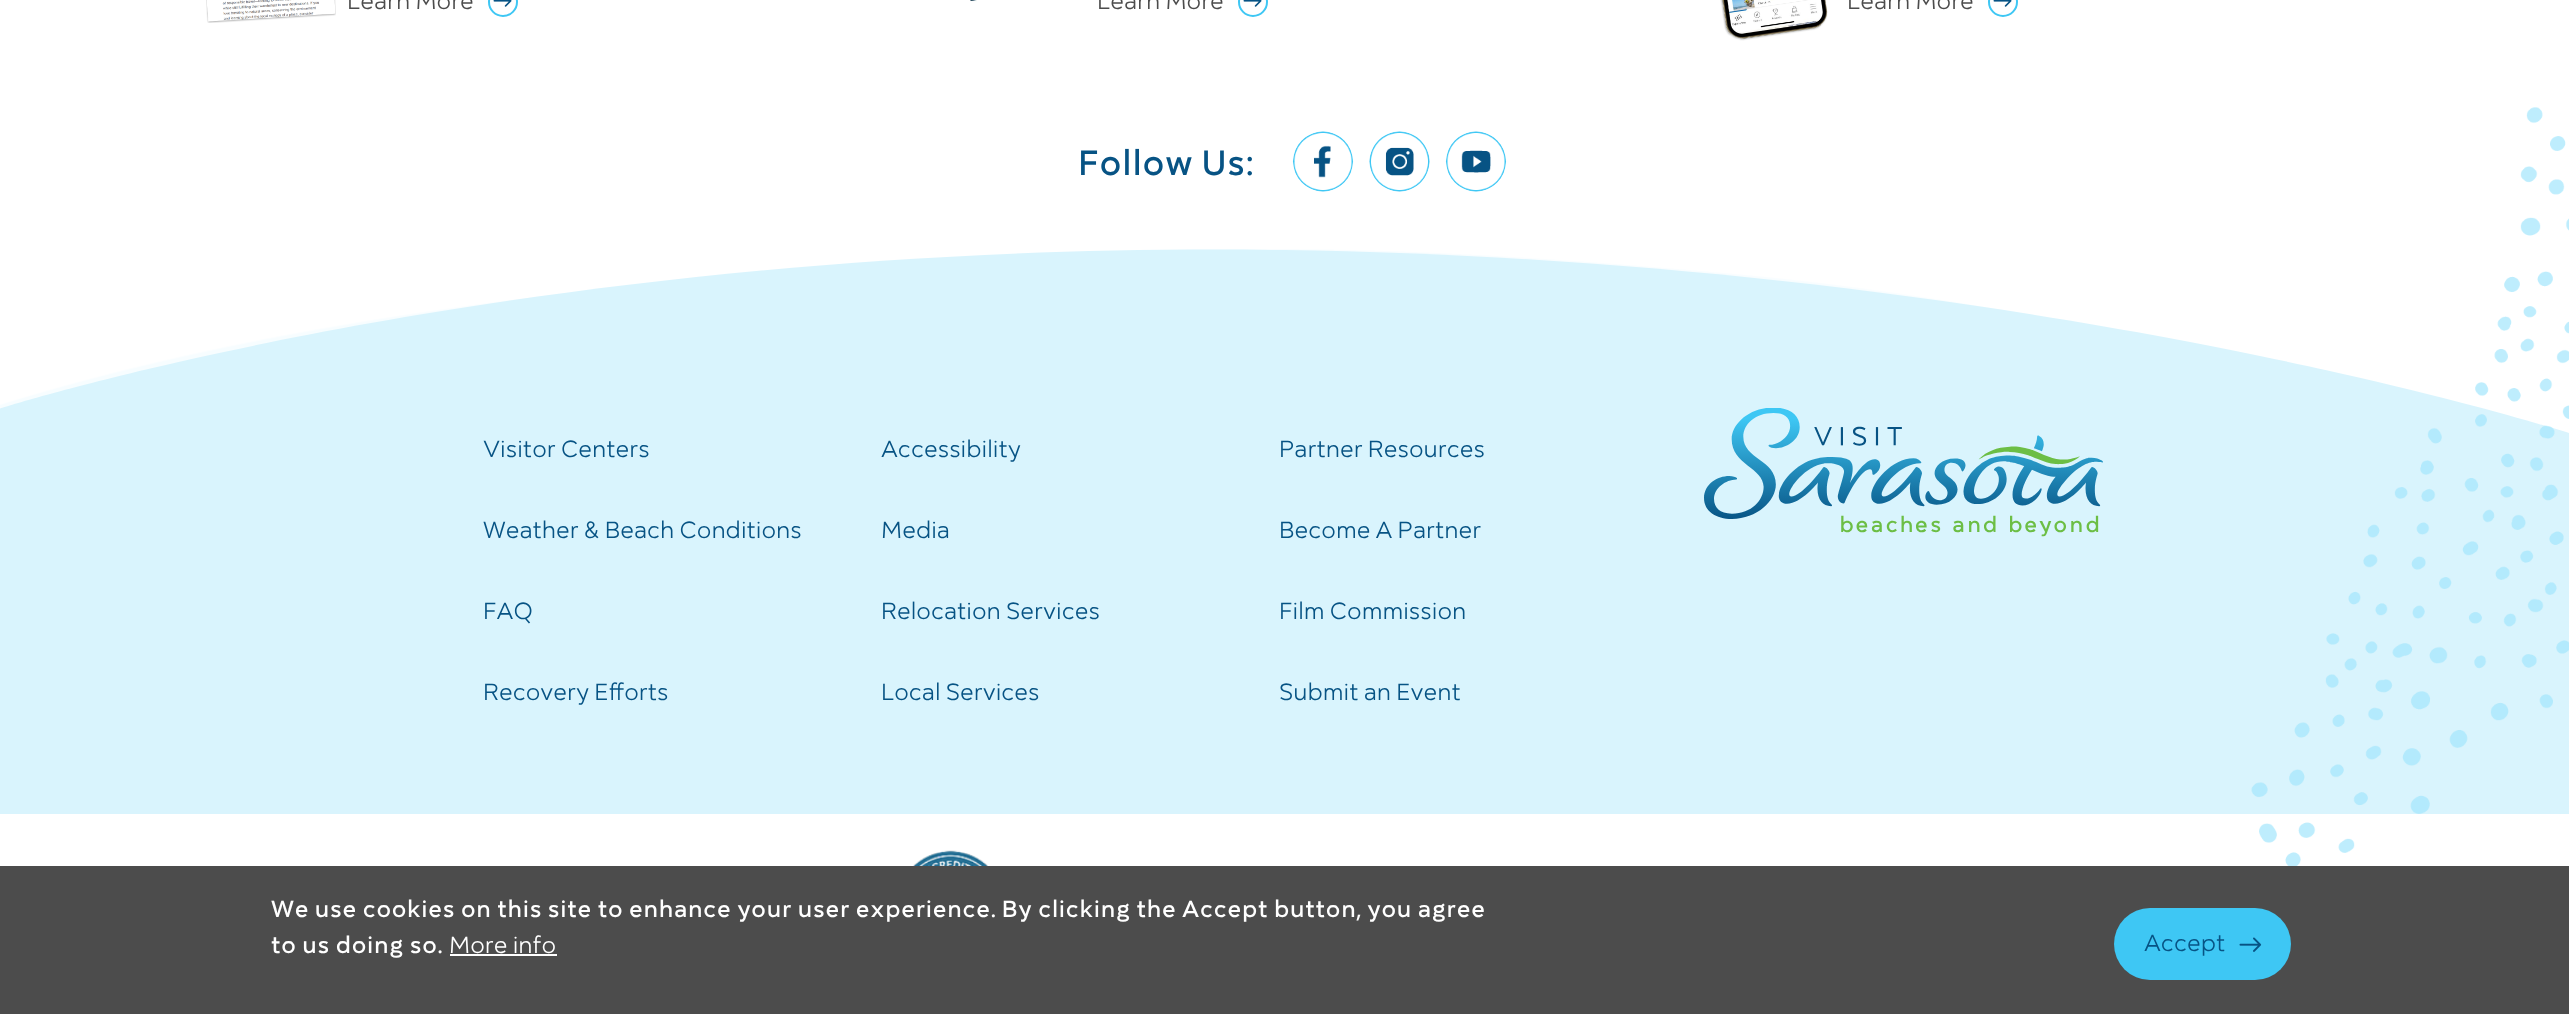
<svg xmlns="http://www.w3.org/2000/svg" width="2569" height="1014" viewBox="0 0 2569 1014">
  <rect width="100%" height="100%" fill="rgb(255,255,255)"/>
  <image x="206" y="0" width="130" height="23" href="pic1.png"/>
  <text x="347" y="9" font-family="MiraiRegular" font-size="24" fill="rgb(76,76,76)">Learn More</text>
  <circle cx="503" cy="2" r="14" fill="none" stroke="rgb(62,199,244)" stroke-width="2"/>
  <image x="493" y="0" width="19" height="7" href="pic2.png"/>
  <image x="970" y="0" width="7" height="2" href="pic3.png"/>
  <text x="1097" y="9" font-family="MiraiRegular" font-size="24" fill="rgb(76,76,76)">Learn More</text>
  <circle cx="1253" cy="2" r="14" fill="none" stroke="rgb(62,199,244)" stroke-width="2"/>
  <image x="1243" y="0" width="19" height="7" href="pic2.png"/>
  <image x="1720" y="0" width="108" height="41" href="pic4.png"/>
  <text x="1847" y="9" font-family="MiraiRegular" font-size="24" fill="rgb(76,76,76)">Learn More</text>
  <circle cx="2003" cy="2" r="14" fill="none" stroke="rgb(62,199,244)" stroke-width="2"/>
  <image x="1993" y="0" width="19" height="7" href="pic2.png"/>
  <text x="1078" y="175" font-family="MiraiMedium" font-size="36" font-weight="500" letter-spacing="0.75" fill="rgb(7,83,132)">Follow Us:</text>
  <image x="1292" y="131" width="62" height="61" href="pic5.png"/>
  <image x="1369" y="131" width="61" height="61" href="pic6.png"/>
  <image x="1445" y="131" width="62" height="61" href="pic7.png"/>
  <image x="0" y="249" width="2569" height="565" href="pic9.png"/>
  <image x="2251" y="107" width="318" height="759" href="pic8.png"/>
  <g font-family="MiraiRegular" font-size="24" fill="rgb(7,83,132)">
    <text x="483" y="457">Visitor Centers</text>
    <text x="881" y="457">Accessibility</text>
    <text x="1279" y="457">Partner Resources</text>
    <text x="483" y="538">Weather &amp; Beach Conditions</text>
    <text x="881" y="538">Media</text>
    <text x="1279" y="538">Become A Partner</text>
    <text x="483" y="619">FAQ</text>
    <text x="881" y="619">Relocation Services</text>
    <text x="1279" y="619">Film Commission</text>
    <text x="483" y="700">Recovery Efforts</text>
    <text x="881" y="700">Local Services</text>
    <text x="1279" y="700">Submit an Event</text>
  </g>
  <image x="1704" y="408" width="399" height="129" href="pic10.png"/>
  <image x="913" y="850" width="75" height="16" href="pic11.png"/>
  <rect x="0" y="866" width="2569" height="148" fill="rgb(76,76,76)"/>
  <g font-family="MiraiMedium" font-size="24" font-weight="500" letter-spacing="0.72" fill="rgb(255,255,255)">
    <text>
      <tspan x="271" y="917">We use cookies on this site to enhance your user experience. By clicking the Accept button, you agree</tspan>
      <tspan x="271" y="953">to us doing so.</tspan>
    </text>
  </g>
  <text x="449" y="953" font-family="MiraiRegular" font-size="24" fill="rgb(255,255,255)">More info</text>
  <rect x="450" y="954" width="107" height="2" fill="rgb(255,255,255)"/>
  <rect x="2114" y="908" width="177" height="72" rx="36" fill="rgb(62,199,244)"/>
  <text x="2144" y="951" font-family="MiraiRegular" font-size="24" fill="rgb(7,83,132)">Accept</text>
  <image x="2239" y="937" width="23" height="15" href="pic12.png"/>
</svg>
